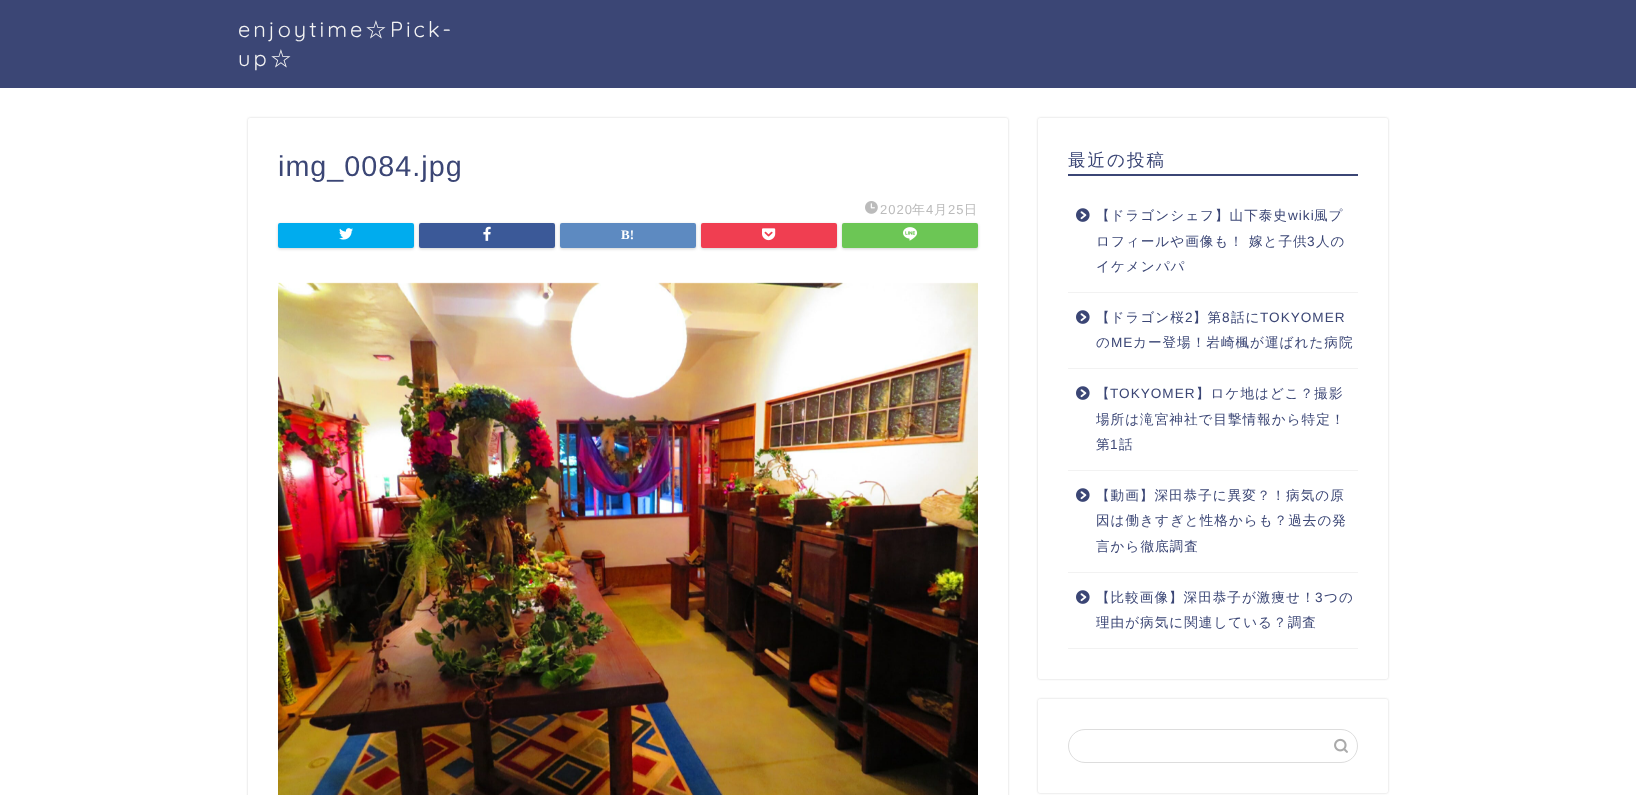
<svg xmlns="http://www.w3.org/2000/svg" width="1636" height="795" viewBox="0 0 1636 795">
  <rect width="100%" height="100%" fill="rgb(255,255,255)"/>
  <rect x="0" y="0" width="1636" height="88" fill="rgb(59,70,117)"/>
  <text x="238" y="37" font-family="Quicksand" font-size="21.75" font-weight="300" letter-spacing="3" fill="rgb(244,244,244)">enjoytime</text>
  <text x="365" y="37" font-family="WenQuanYi Zen Hei" font-size="21.75" font-weight="500" letter-spacing="3" fill="rgb(244,244,244)">☆</text>
  <g font-family="Quicksand" font-size="21.75" font-weight="300" letter-spacing="3" fill="rgb(244,244,244)">
    <text x="390" y="37">Pick-</text>
    <text x="238" y="66">up</text>
  </g>
  <text x="270" y="66" font-family="WenQuanYi Zen Hei" font-size="21.75" font-weight="500" letter-spacing="3" fill="rgb(244,244,244)">☆</text>
  <rect x="248" y="118" width="760" height="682" rx="2" fill="rgba(0,0,0,0.18)" filter="blur(1px)"/>
  <rect x="248" y="118" width="760" height="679" rx="2" fill="rgb(255,255,255)"/>
  <text x="278" y="176" font-family="Liberation Sans" font-size="28.75" letter-spacing="1" fill="rgb(59,70,117)">img_0084.jpg</text>
  <image x="865" y="201" width="13" height="13" href="pic1.png"/>
  <text x="880" y="214" font-family="Liberation Sans" font-size="13" letter-spacing="1" fill="rgb(187,187,187)">2020</text>
  <text x="912" y="214" font-family="WenQuanYi Zen Hei" font-size="13" font-weight="500" letter-spacing="1" fill="rgb(187,187,187)">年</text>
  <text x="926" y="214" font-family="Liberation Sans" font-size="13" letter-spacing="1" fill="rgb(187,187,187)">4</text>
  <text x="934" y="214" font-family="WenQuanYi Zen Hei" font-size="13" font-weight="500" letter-spacing="1" fill="rgb(187,187,187)">月</text>
  <text x="948" y="214" font-family="Liberation Sans" font-size="13" letter-spacing="1" fill="rgb(187,187,187)">25</text>
  <text x="964" y="214" font-family="WenQuanYi Zen Hei" font-size="13" font-weight="500" letter-spacing="1" fill="rgb(187,187,187)">日</text>
  <rect x="278" y="224" width="136" height="25" rx="2" fill="rgba(0,0,0,0.18)" filter="blur(1.5px)"/>
  <rect x="279" y="224" width="134" height="23" rx="1" fill="rgb(0,172,238)" stroke="rgb(0,172,238)" stroke-width="2"/>
  <image x="339" y="228" width="14" height="12" href="pic2.png"/>
  <rect x="419" y="224" width="136" height="25" rx="2" fill="rgba(0,0,0,0.18)" filter="blur(1.5px)"/>
  <rect x="420" y="224" width="134" height="23" rx="1" fill="rgb(59,89,152)" stroke="rgb(59,89,152)" stroke-width="2"/>
  <image x="483" y="226" width="8" height="15" href="pic3.png"/>
  <rect x="560" y="224" width="136" height="25" rx="2" fill="rgba(0,0,0,0.18)" filter="blur(1.5px)"/>
  <rect x="561" y="224" width="134" height="23" rx="1" fill="rgb(93,138,193)" stroke="rgb(93,138,193)" stroke-width="2"/>
  <text x="621" y="239" font-family="Liberation Serif" font-size="13" font-weight="bold" fill="rgb(255,255,255)">B!</text>
  <rect x="701" y="224" width="136" height="25" rx="2" fill="rgba(0,0,0,0.18)" filter="blur(1.5px)"/>
  <rect x="702" y="224" width="134" height="23" rx="1" fill="rgb(240,62,81)" stroke="rgb(240,62,81)" stroke-width="2"/>
  <image x="762" y="228" width="14" height="13" href="pic4.png"/>
  <rect x="842" y="224" width="136" height="25" rx="2" fill="rgba(0,0,0,0.18)" filter="blur(1.5px)"/>
  <rect x="843" y="224" width="134" height="23" rx="1" fill="rgb(108,198,85)" stroke="rgb(108,198,85)" stroke-width="2"/>
  <image x="903" y="227" width="15" height="14" href="pic5.png"/>
  <image x="278" y="282" width="700" height="513" href="pic6.png"/>
  <rect x="1038" y="118" width="350" height="561" rx="2" fill="rgba(0,0,0,0.18)" filter="blur(1px)"/>
  <rect x="1038" y="118" width="350" height="561" rx="2" fill="rgb(255,255,255)"/>
  <rect x="1068" y="174" width="290" height="2" fill="rgb(59,70,117)"/>
  <text x="1068" y="166" font-family="WenQuanYi Zen Hei" font-size="17.5" font-weight="500" letter-spacing="2" fill="rgb(59,70,117)">最近の投稿</text>
  <rect x="1068" y="292" width="290" height="1" fill="rgb(242,242,242)"/>
  <image x="1076" y="208" width="14" height="14" href="pic7.png"/>
  <text x="1096" y="220" font-family="WenQuanYi Zen Hei" font-size="13.6" font-weight="500" letter-spacing="1" fill="rgb(59,70,117)">【ドラゴンシェフ】山下泰史</text>
  <text x="1288" y="220" font-family="Liberation Sans" font-size="13.6" letter-spacing="1" fill="rgb(59,70,117)">wiki</text>
  <g font-family="WenQuanYi Zen Hei" font-size="13.6" font-weight="500" letter-spacing="1" fill="rgb(59,70,117)">
    <text x="1314" y="220">風プ</text>
    <text x="1096" y="246">ロフィールや画像も！ 嫁と子供</text>
  </g>
  <text x="1307" y="246" font-family="Liberation Sans" font-size="13.6" letter-spacing="1" fill="rgb(59,70,117)">3</text>
  <g font-family="WenQuanYi Zen Hei" font-size="13.6" font-weight="500" letter-spacing="1" fill="rgb(59,70,117)">
    <text x="1316" y="246">人の</text>
    <text x="1096" y="271">イケメンパパ</text>
  </g>
  <rect x="1068" y="368" width="290" height="1" fill="rgb(242,242,242)"/>
  <image x="1076" y="310" width="14" height="14" href="pic7.png"/>
  <text x="1096" y="322" font-family="WenQuanYi Zen Hei" font-size="13.6" font-weight="500" letter-spacing="1" fill="rgb(59,70,117)">【ドラゴン桜</text>
  <text x="1185" y="322" font-family="Liberation Sans" font-size="13.6" letter-spacing="1" fill="rgb(59,70,117)">2</text>
  <text x="1193" y="322" font-family="WenQuanYi Zen Hei" font-size="13.6" font-weight="500" letter-spacing="1" fill="rgb(59,70,117)">】第</text>
  <text x="1222" y="322" font-family="Liberation Sans" font-size="13.6" letter-spacing="1" fill="rgb(59,70,117)">8</text>
  <text x="1231" y="322" font-family="WenQuanYi Zen Hei" font-size="13.6" font-weight="500" letter-spacing="1" fill="rgb(59,70,117)">話に</text>
  <text x="1260" y="322" font-family="Liberation Sans" font-size="13.6" letter-spacing="1" fill="rgb(59,70,117)">TOKYOMER</text>
  <text x="1096" y="347" font-family="WenQuanYi Zen Hei" font-size="13.6" font-weight="500" letter-spacing="1" fill="rgb(59,70,117)">の</text>
  <text x="1111" y="347" font-family="Liberation Sans" font-size="13.6" letter-spacing="1" fill="rgb(59,70,117)">ME</text>
  <text x="1133" y="347" font-family="WenQuanYi Zen Hei" font-size="13.6" font-weight="500" letter-spacing="1" fill="rgb(59,70,117)">カー登場！岩崎楓が運ばれた病院</text>
  <rect x="1068" y="470" width="290" height="1" fill="rgb(242,242,242)"/>
  <image x="1076" y="386" width="14" height="14" href="pic7.png"/>
  <text x="1096" y="398" font-family="WenQuanYi Zen Hei" font-size="13.6" font-weight="500" letter-spacing="1" fill="rgb(59,70,117)">【</text>
  <text x="1110" y="398" font-family="Liberation Sans" font-size="13.6" letter-spacing="1" fill="rgb(59,70,117)">TOKYOMER</text>
  <g font-family="WenQuanYi Zen Hei" font-size="13.6" font-weight="500" letter-spacing="1" fill="rgb(59,70,117)">
    <text x="1196" y="398">】ロケ地はどこ？撮影</text>
    <text>
      <tspan x="1096" y="424">場所は滝宮神社で目撃情報から特定！</tspan>
      <tspan x="1096" y="449">第</tspan>
    </text>
  </g>
  <text x="1110" y="449" font-family="Liberation Sans" font-size="13.6" letter-spacing="1" fill="rgb(59,70,117)">1</text>
  <text x="1119" y="449" font-family="WenQuanYi Zen Hei" font-size="13.6" font-weight="500" letter-spacing="1" fill="rgb(59,70,117)">話</text>
  <rect x="1068" y="572" width="290" height="1" fill="rgb(242,242,242)"/>
  <image x="1076" y="488" width="14" height="14" href="pic7.png"/>
  <g font-family="WenQuanYi Zen Hei" font-size="13.6" font-weight="500" letter-spacing="1" fill="rgb(59,70,117)">
    <text>
      <tspan x="1096" y="500">【動画】深田恭子に異変？！病気の原</tspan>
      <tspan x="1096" y="525">因は働きすぎと性格からも？過去の発</tspan>
      <tspan x="1096" y="551">言から徹底調査</tspan>
    </text>
  </g>
  <rect x="1068" y="648" width="290" height="1" fill="rgb(242,242,242)"/>
  <image x="1076" y="590" width="14" height="14" href="pic7.png"/>
  <text x="1096" y="602" font-family="WenQuanYi Zen Hei" font-size="13.6" font-weight="500" letter-spacing="1" fill="rgb(59,70,117)">【比較画像】深田恭子が激痩せ！</text>
  <text x="1315" y="602" font-family="Liberation Sans" font-size="13.6" letter-spacing="1" fill="rgb(59,70,117)">3</text>
  <g font-family="WenQuanYi Zen Hei" font-size="13.6" font-weight="500" letter-spacing="1" fill="rgb(59,70,117)">
    <text x="1324" y="602">つの</text>
    <text x="1096" y="627">理由が病気に関連している？調査</text>
  </g>
  <rect x="1038" y="699" width="350" height="94" rx="2" fill="rgba(0,0,0,0.18)" filter="blur(1px)"/>
  <rect x="1038" y="699" width="350" height="94" rx="2" fill="rgb(255,255,255)"/>
  <rect x="1068.5" y="729.5" width="289" height="33" rx="16.5" fill="none" stroke="rgb(221,221,221)"/>
  <image x="1334" y="738" width="14" height="15" href="pic8.png"/>
</svg>
